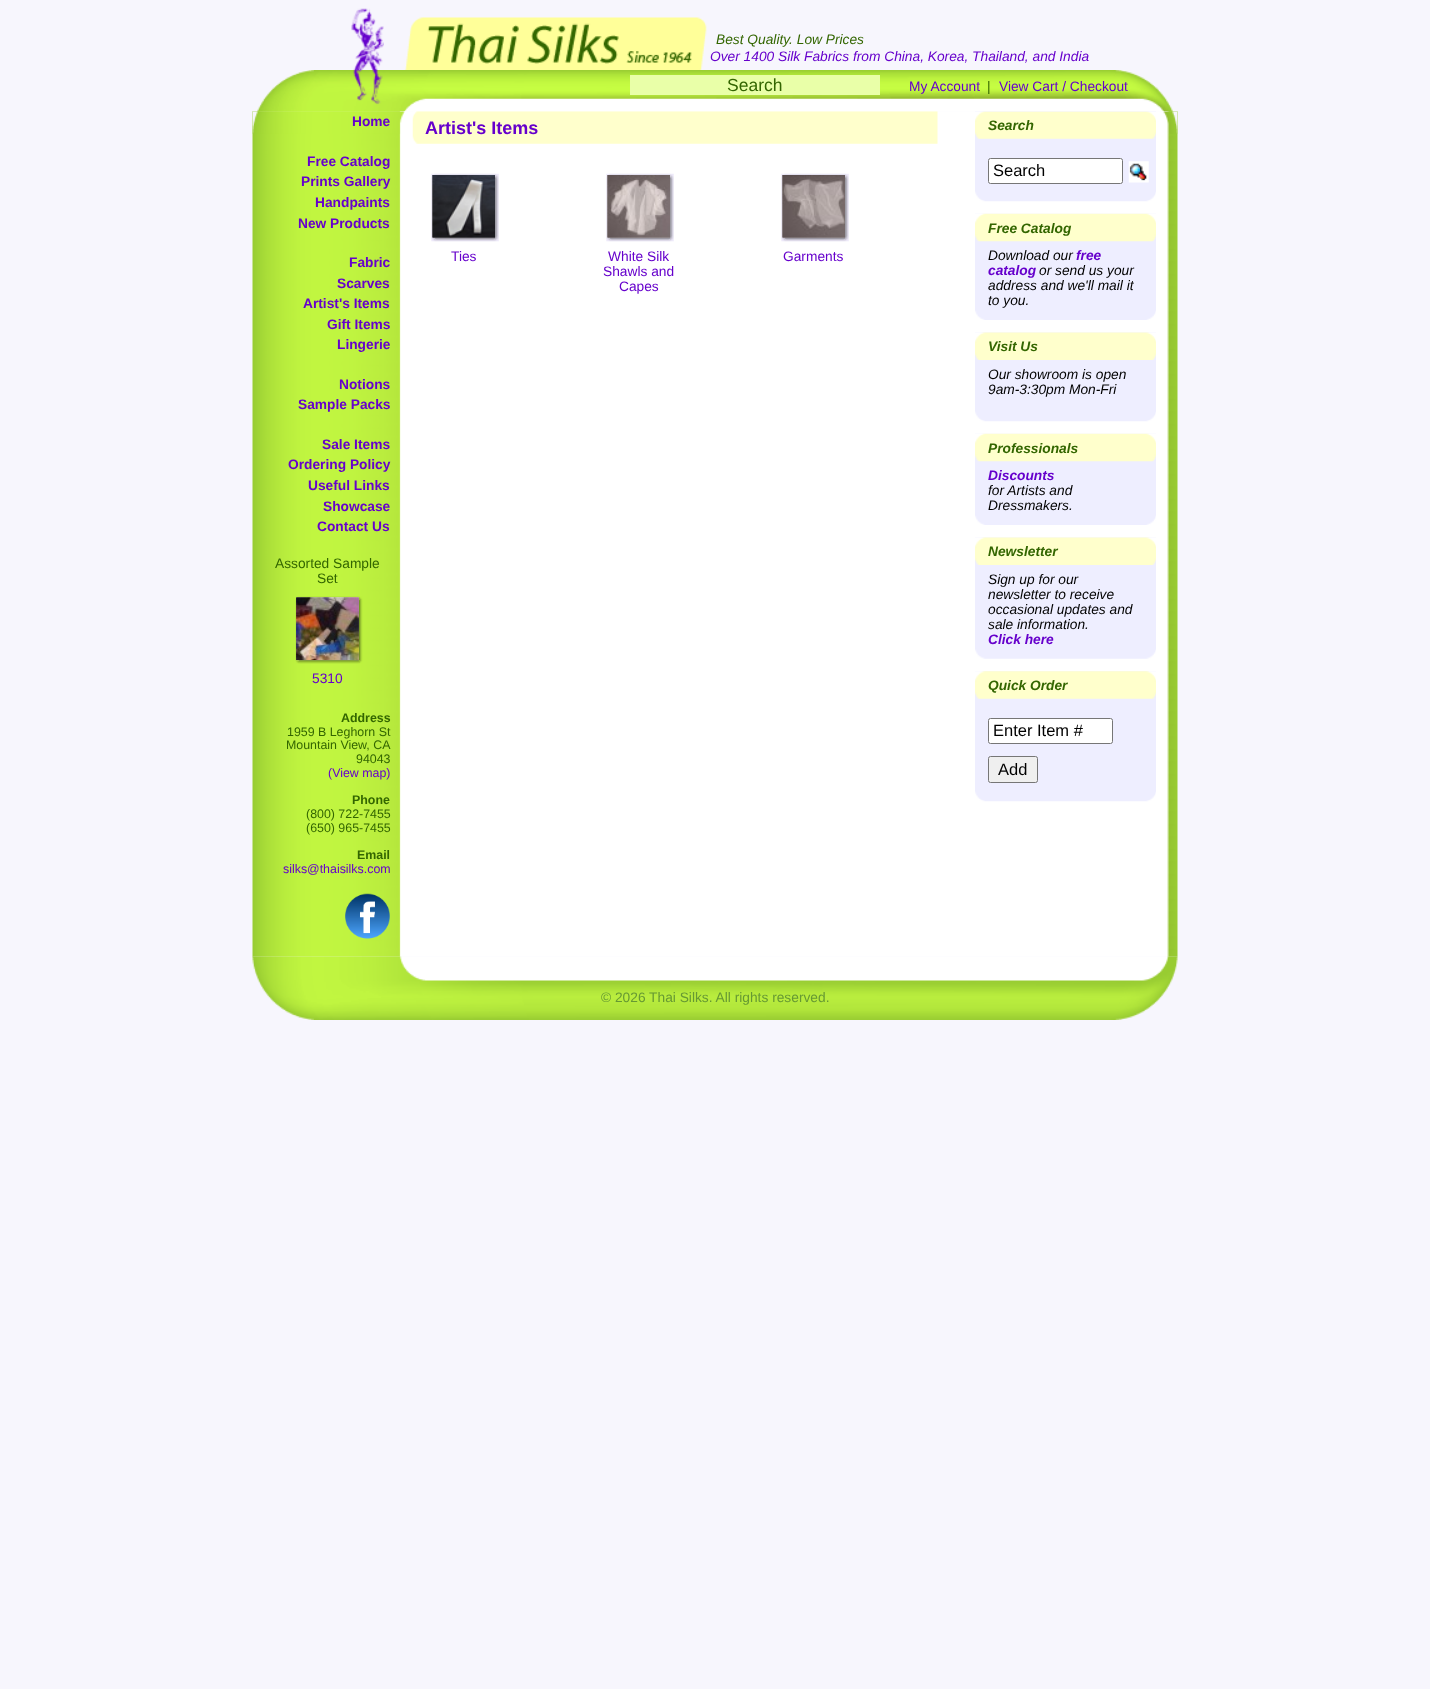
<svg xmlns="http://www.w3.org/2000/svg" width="1430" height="1689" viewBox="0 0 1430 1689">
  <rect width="100%" height="100%" fill="rgb(247,246,253)"/>
  <image x="351" y="8" width="356" height="62" href="pic1.png"/>
  <text x="716" y="44" font-family="Liberation Sans" font-size="13.75" font-style="italic" fill="rgb(51,102,0)">Best Quality. Low Prices</text>
  <text x="710" y="61" font-family="Liberation Sans" font-size="13.75" font-style="italic" fill="rgb(102,0,204)">Over 1400 Silk Fabrics from China, Korea, Thailand, and India</text>
  <image x="257" y="70" width="916" height="42" href="pic2.png"/>
  <rect x="630" y="75" width="250" height="20" fill="rgb(233,255,168)"/>
  <text x="727" y="91" font-family="Liberation Sans" font-size="17.5" fill="rgb(51,102,0)">Search</text>
  <text x="909" y="91" font-family="Liberation Sans" font-size="13.75" fill="rgb(102,0,204)">My Account</text>
  <text x="987" y="91" font-family="Liberation Sans" font-size="13.75" fill="rgb(51,102,0)">|</text>
  <text x="999" y="91" font-family="Liberation Sans" font-size="13.75" fill="rgb(102,0,204)">View Cart / Checkout</text>
  <image x="252" y="956" width="926" height="64" href="pic27.png"/>
  <image x="252" y="111" width="926" height="846" href="pic3.png"/>
  <image x="252" y="111" width="153" height="23" href="pic4.png"/>
  <g font-family="Liberation Sans" font-size="13.75" font-weight="bold" fill="rgb(102,0,204)">
    <text x="352" y="126">Home</text>
    <text x="307" y="166">Free Catalog</text>
    <text x="301" y="186">Prints Gallery</text>
    <text x="315" y="207">Handpaints</text>
    <text x="298" y="228">New Products</text>
    <text x="349" y="267">Fabric</text>
    <text x="337" y="288">Scarves</text>
    <text x="303" y="308">Artist's Items</text>
    <text x="327" y="329">Gift Items</text>
    <text x="337" y="349">Lingerie</text>
    <text x="339" y="389">Notions</text>
    <text x="298" y="409">Sample Packs</text>
    <text x="322" y="449">Sale Items</text>
    <text x="288" y="469">Ordering Policy</text>
    <text x="308" y="490">Useful Links</text>
    <text x="323" y="511">Showcase</text>
    <text x="317" y="531">Contact Us</text>
  </g>
  <g font-family="Liberation Sans" font-size="13.75" fill="rgb(51,102,0)">
    <text x="275" y="568">Assorted Sample</text>
    <text x="317" y="583">Set</text>
  </g>
  <image x="295" y="596" width="68" height="68" href="pic5.png"/>
  <image x="296" y="597" width="63" height="63" href="pic6.png"/>
  <text x="312" y="683" font-family="Liberation Sans" font-size="13.75" fill="rgb(102,0,204)">5310</text>
  <text x="341" y="722" font-family="Liberation Sans" font-size="12.4" font-weight="bold" fill="rgb(51,102,0)">Address</text>
  <g font-family="Liberation Sans" font-size="12.4" fill="rgb(51,102,0)">
    <text x="287" y="736">1959 B Leghorn St</text>
    <text x="286" y="749">Mountain View, CA</text>
    <text x="356" y="763">94043</text>
  </g>
  <text x="328" y="777" font-family="Liberation Sans" font-size="12.4" fill="rgb(102,0,204)">(View map)</text>
  <text x="352" y="804" font-family="Liberation Sans" font-size="12.4" font-weight="bold" fill="rgb(51,102,0)">Phone</text>
  <g font-family="Liberation Sans" font-size="12.4" fill="rgb(51,102,0)">
    <text>
      <tspan x="306" y="818">(800) 722-7455</tspan>
      <tspan x="306" y="832">(650) 965-7455</tspan>
    </text>
  </g>
  <text x="357" y="859" font-family="Liberation Sans" font-size="12.4" font-weight="bold" fill="rgb(51,102,0)">Email</text>
  <text x="283" y="873" font-family="Liberation Sans" font-size="12.4" fill="rgb(102,0,204)">silks@thaisilks.com</text>
  <image x="345" y="893" width="45" height="46" href="pic7.png"/>
  <image x="412" y="111" width="526" height="33" href="pic8.png"/>
  <text x="425" y="134" font-family="Liberation Sans" font-size="18" font-weight="bold" fill="rgb(102,0,204)">Artist's Items</text>
  <image x="431" y="173" width="68" height="69" href="pic9.png"/>
  <image x="432" y="175" width="63" height="63" href="pic10.png"/>
  <text x="451" y="261" font-family="Liberation Sans" font-size="13.75" fill="rgb(102,0,204)">Ties</text>
  <image x="606" y="173" width="68" height="69" href="pic11.png"/>
  <image x="607" y="175" width="63" height="63" href="pic12.png"/>
  <g font-family="Liberation Sans" font-size="13.75" fill="rgb(102,0,204)">
    <text x="608" y="261">White Silk</text>
    <text x="603" y="276">Shawls and</text>
    <text x="619" y="291">Capes</text>
  </g>
  <image x="781" y="173" width="68" height="69" href="pic13.png"/>
  <image x="782" y="175" width="63" height="63" href="pic14.png"/>
  <text x="783" y="261" font-family="Liberation Sans" font-size="13.75" fill="rgb(102,0,204)">Garments</text>
  <image x="975" y="111" width="181" height="91" href="pic15.png"/>
  <image x="975" y="111" width="181" height="28" href="pic16.png"/>
  <text x="988" y="130" font-family="Liberation Sans" font-size="13.75" font-weight="bold" font-style="italic" fill="rgb(51,102,0)">Search</text>
  <rect x="988.5" y="158.5" width="134" height="25" rx="2" fill="rgb(255,255,255)" stroke="rgb(118,118,118)"/>
  <text x="993" y="176" font-family="Liberation Sans" font-size="16.5" fill="rgb(0,0,0)">Search</text>
  <image x="1128" y="161" width="21" height="22" href="pic17.png"/>
  <image x="975" y="213" width="181" height="107" href="pic18.png"/>
  <image x="975" y="213" width="181" height="29" href="pic19.png"/>
  <text x="988" y="233" font-family="Liberation Sans" font-size="13.75" font-weight="bold" font-style="italic" fill="rgb(51,102,0)">Free Catalog</text>
  <text x="988" y="260" font-family="Liberation Sans" font-size="13.75" font-style="italic" fill="rgb(0,0,0)">Download our</text>
  <g font-family="Liberation Sans" font-size="13.75" font-weight="bold" font-style="italic" fill="rgb(102,0,204)">
    <text x="1076" y="260">free</text>
    <text x="988" y="275">catalog</text>
  </g>
  <g font-family="Liberation Sans" font-size="13.75" font-style="italic" fill="rgb(0,0,0)">
    <text x="1039" y="275">or send us your</text>
    <text>
      <tspan x="988" y="290">address and we'll mail it</tspan>
      <tspan x="988" y="305">to you.</tspan>
    </text>
  </g>
  <image x="975" y="332" width="181" height="90" href="pic20.png"/>
  <image x="975" y="332" width="181" height="28" href="pic21.png"/>
  <text x="988" y="351" font-family="Liberation Sans" font-size="13.75" font-weight="bold" font-style="italic" fill="rgb(51,102,0)">Visit Us</text>
  <g font-family="Liberation Sans" font-size="13.75" font-style="italic" fill="rgb(0,0,0)">
    <text>
      <tspan x="988" y="379">Our showroom is open</tspan>
      <tspan x="988" y="394">9am-3:30pm Mon-Fri</tspan>
    </text>
  </g>
  <image x="975" y="433" width="181" height="92" href="pic22.png"/>
  <image x="975" y="433" width="181" height="29" href="pic19.png"/>
  <text x="988" y="453" font-family="Liberation Sans" font-size="13.75" font-weight="bold" font-style="italic" fill="rgb(51,102,0)">Professionals</text>
  <text x="988" y="480" font-family="Liberation Sans" font-size="13.75" font-weight="bold" font-style="italic" fill="rgb(102,0,204)">Discounts</text>
  <g font-family="Liberation Sans" font-size="13.75" font-style="italic" fill="rgb(0,0,0)">
    <text>
      <tspan x="988" y="495">for Artists and</tspan>
      <tspan x="988" y="510">Dressmakers.</tspan>
    </text>
  </g>
  <image x="975" y="537" width="181" height="122" href="pic23.png"/>
  <image x="975" y="537" width="181" height="28" href="pic21.png"/>
  <text x="988" y="556" font-family="Liberation Sans" font-size="13.75" font-weight="bold" font-style="italic" fill="rgb(51,102,0)">Newsletter</text>
  <g font-family="Liberation Sans" font-size="13.75" font-style="italic" fill="rgb(0,0,0)">
    <text>
      <tspan x="988" y="584">Sign up for our</tspan>
      <tspan x="988" y="599">newsletter to receive</tspan>
      <tspan x="988" y="614">occasional updates and</tspan>
      <tspan x="988" y="629">sale information.</tspan>
    </text>
  </g>
  <text x="988" y="644" font-family="Liberation Sans" font-size="13.75" font-weight="bold" font-style="italic" fill="rgb(102,0,204)">Click here</text>
  <image x="975" y="671" width="181" height="131" href="pic24.png"/>
  <image x="975" y="671" width="181" height="28" href="pic25.png"/>
  <text x="988" y="690" font-family="Liberation Sans" font-size="13.75" font-weight="bold" font-style="italic" fill="rgb(51,102,0)">Quick Order</text>
  <rect x="988.5" y="718.5" width="124" height="25" rx="2" fill="rgb(255,255,255)" stroke="rgb(118,118,118)"/>
  <text x="993" y="736" font-family="Liberation Sans" font-size="16.5" fill="rgb(0,0,0)">Enter Item #</text>
  <rect x="988.5" y="756.5" width="49" height="26" rx="2" fill="rgb(239,239,239)" stroke="rgb(118,118,118)"/>
  <text x="998" y="775" font-family="Liberation Sans" font-size="16.5" fill="rgb(0,0,0)">Add</text>
  <image x="1163" y="111" width="15" height="23" href="pic26.png"/>
  <text x="601" y="1002" font-family="Liberation Sans" font-size="13.75" fill="rgb(102,153,51)">© 2026 Thai Silks. All rights reserved.</text>
</svg>
